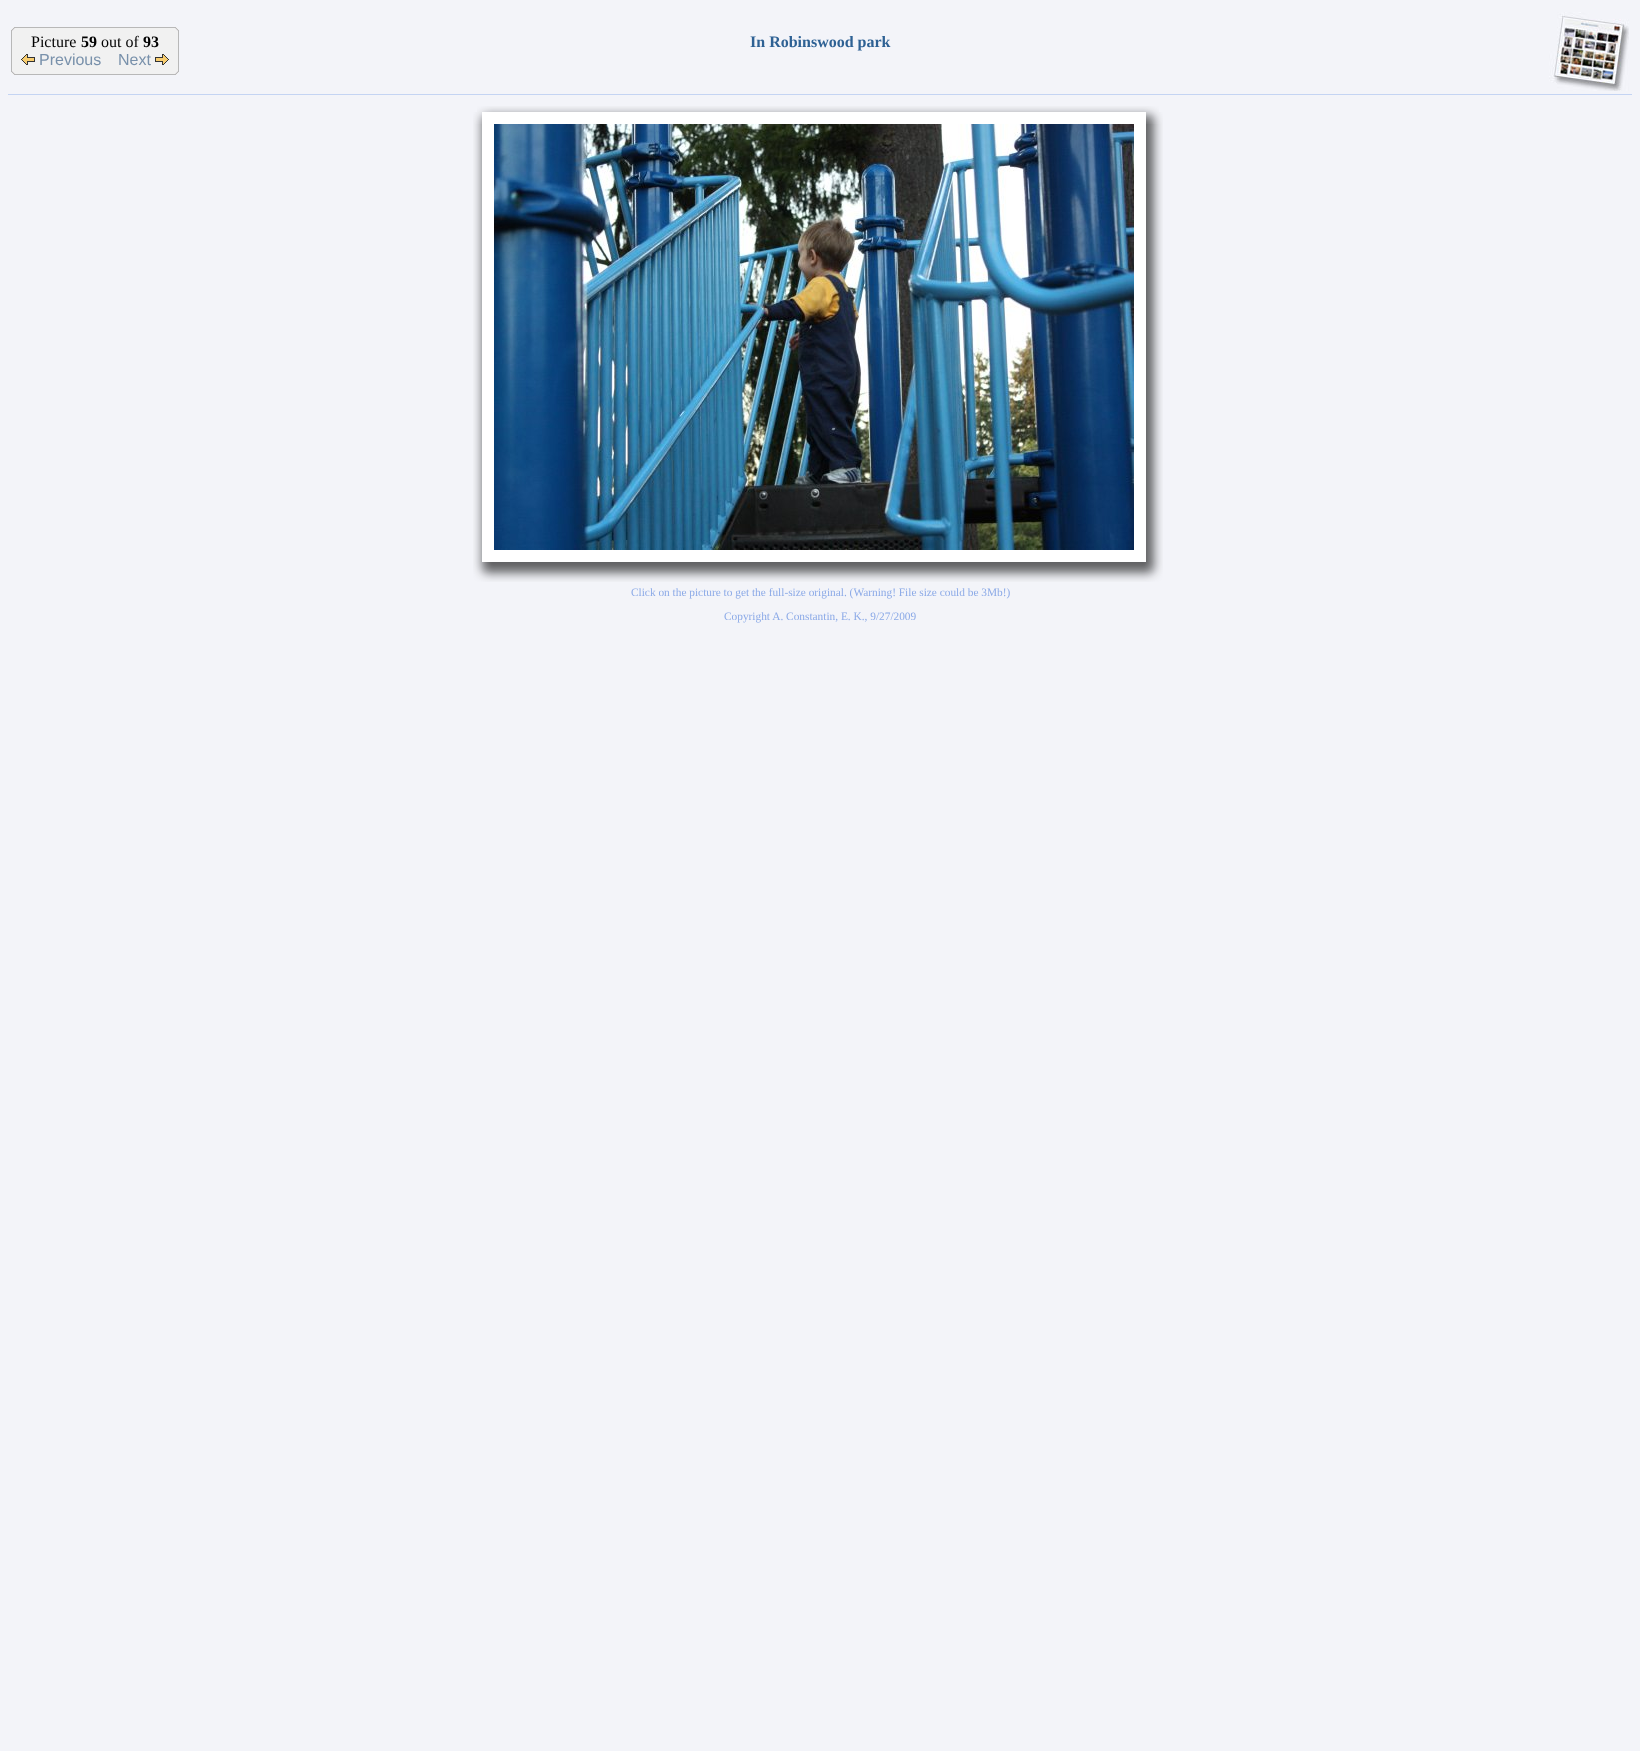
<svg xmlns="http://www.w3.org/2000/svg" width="1640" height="1751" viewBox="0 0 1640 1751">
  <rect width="100%" height="100%" fill="rgb(243,244,249)"/>
  <image x="11" y="27" width="10" height="10" href="pic1.png"/>
  <rect x="11" y="37" width="1" height="28" fill="rgb(184,184,184)"/>
  <rect x="12" y="37" width="9" height="28" fill="rgb(241,241,241)"/>
  <image x="11" y="65" width="10" height="10" href="pic2.png"/>
  <rect x="21" y="27" width="148" height="1" fill="rgb(184,184,184)"/>
  <rect x="21" y="28" width="148" height="46" fill="rgb(241,241,241)"/>
  <text x="31" y="47" font-family="Liberation Serif" font-size="16" fill="rgb(0,0,0)">Picture</text>
  <text x="81" y="47" font-family="Liberation Serif" font-size="16" font-weight="bold" fill="rgb(0,0,0)">59</text>
  <text x="101" y="47" font-family="Liberation Serif" font-size="16" fill="rgb(0,0,0)">out of</text>
  <text x="143" y="47" font-family="Liberation Serif" font-size="16" font-weight="bold" fill="rgb(0,0,0)">93</text>
  <image x="21" y="54" width="14" height="11" href="pic3.png"/>
  <g font-family="Liberation Sans" font-size="16" fill="rgb(121,145,171)">
    <text x="39" y="65">Previous</text>
    <text x="118" y="65">Next</text>
  </g>
  <image x="155" y="54" width="14" height="11" href="pic4.png"/>
  <rect x="21" y="74" width="148" height="1" fill="rgb(184,184,184)"/>
  <image x="169" y="27" width="10" height="10" href="pic5.png"/>
  <rect x="169" y="37" width="9" height="28" fill="rgb(241,241,241)"/>
  <rect x="178" y="37" width="1" height="28" fill="rgb(184,184,184)"/>
  <image x="169" y="65" width="10" height="10" href="pic6.png"/>
  <text x="750" y="47" font-family="Liberation Serif" font-size="16" font-weight="bold" fill="rgb(46,97,148)">In Robinswood park</text>
  <image x="1549" y="12" width="80" height="79" href="pic7.png"/>
  <rect x="8" y="94" width="1624" height="1" fill="rgb(196,212,243)"/>
  <image x="477" y="106" width="17" height="6" href="pic8.png"/>
  <image x="494" y="106" width="640" height="6" href="pic9.png"/>
  <image x="1134" y="106" width="25" height="6" href="pic10.png"/>
  <image x="473" y="112" width="9" height="12" href="pic11.png"/>
  <rect x="482" y="112" width="664" height="12" fill="rgb(255,255,255)"/>
  <image x="1146" y="112" width="17" height="12" href="pic12.png"/>
  <image x="473" y="124" width="9" height="426" href="pic13.png"/>
  <rect x="482" y="124" width="12" height="426" fill="rgb(255,255,255)"/>
  <image x="494" y="124" width="640" height="426" href="pic14.png"/>
  <rect x="1134" y="124" width="12" height="426" fill="rgb(255,255,255)"/>
  <image x="1146" y="124" width="17" height="426" href="pic15.png"/>
  <image x="473" y="550" width="9" height="12" href="pic16.png"/>
  <rect x="482" y="550" width="664" height="12" fill="rgb(255,255,255)"/>
  <image x="1146" y="550" width="17" height="12" href="pic17.png"/>
  <image x="473" y="562" width="21" height="20" href="pic18.png"/>
  <image x="494" y="562" width="640" height="20" href="pic19.png"/>
  <image x="1134" y="562" width="29" height="20" href="pic20.png"/>
  <g font-family="Liberation Serif" font-size="11.35" fill="rgb(140,170,231)">
    <text x="631" y="596">Click on the picture to get the full-size original. (Warning! File size could be 3Mb!)</text>
    <text x="724" y="620">Copyright A. Constantin, E. K., 9/27/2009</text>
  </g>
</svg>
